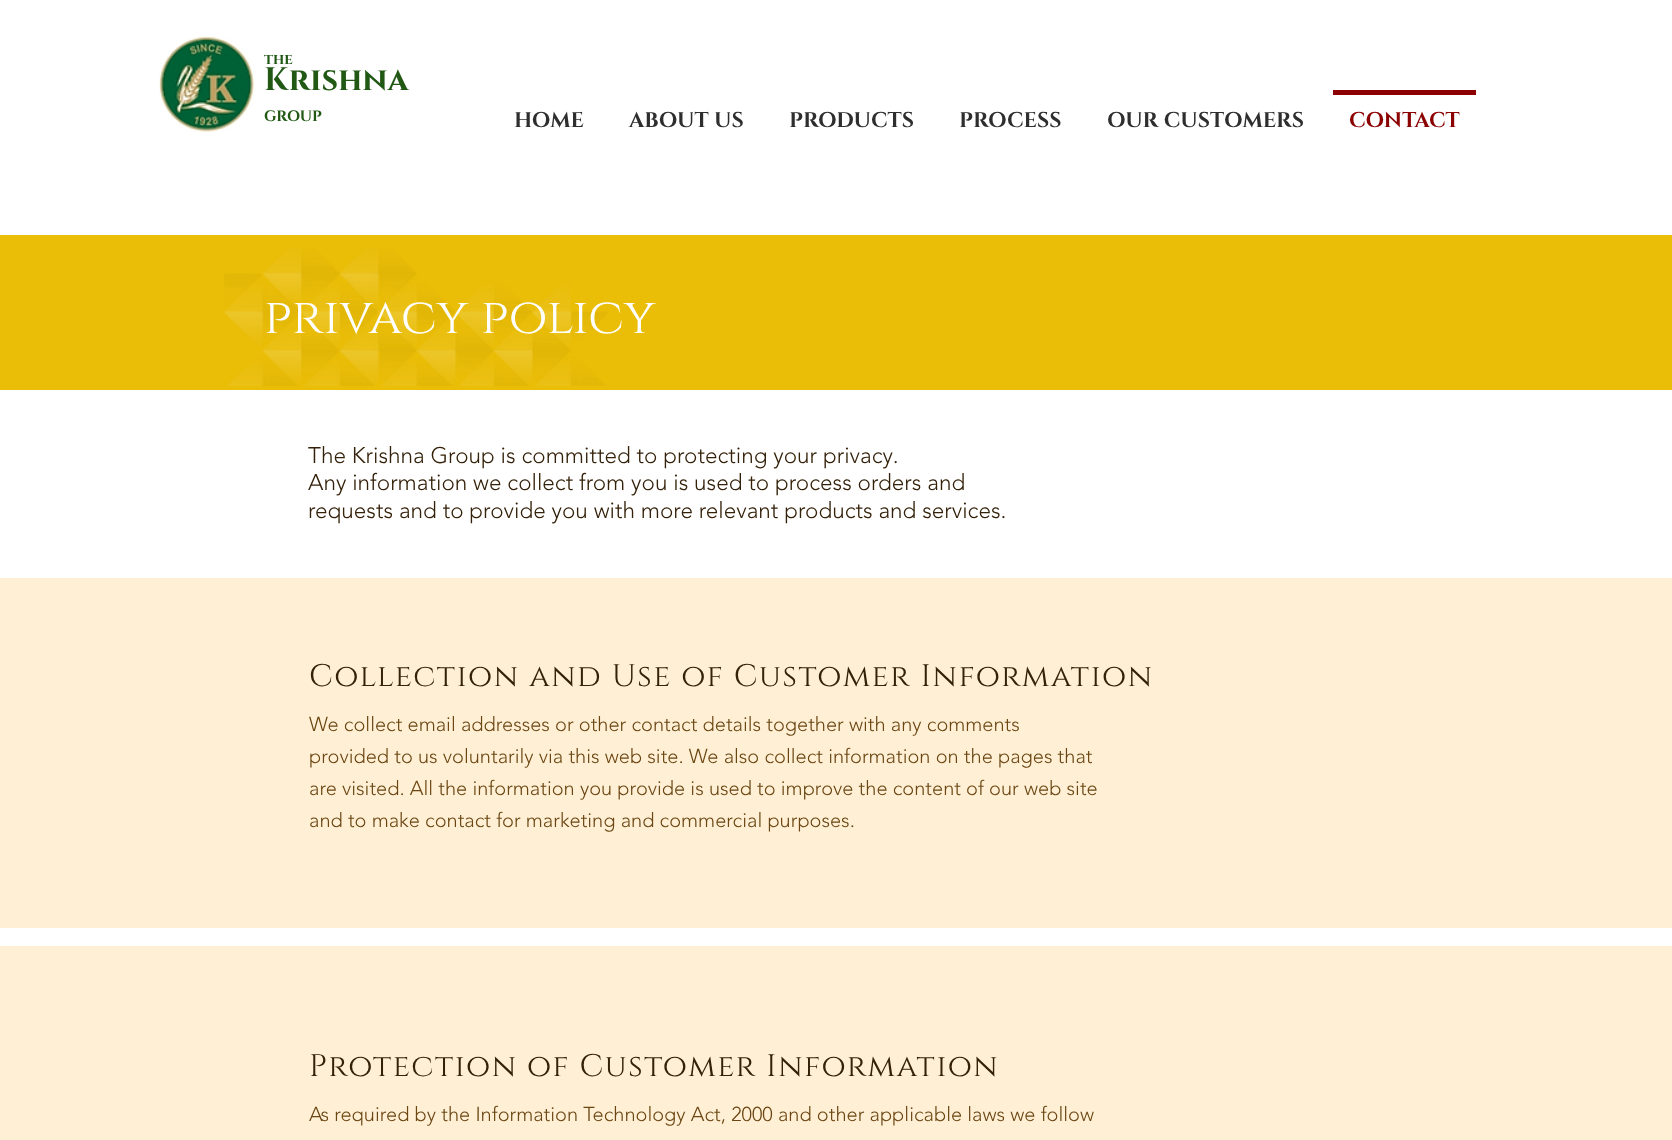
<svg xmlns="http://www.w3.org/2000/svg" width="1672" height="1140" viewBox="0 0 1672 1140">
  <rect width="100%" height="100%" fill="rgb(255,255,255)"/>
  <image x="159" y="36" width="95" height="96" href="pic1.png"/>
  <text x="264" y="64" font-family="Cinzel" font-size="15" font-weight="bold" fill="rgb(32,88,20)">the</text>
  <text x="264" y="90" font-family="Cinzel" font-size="32.5" font-weight="bold" fill="rgb(32,88,20)">Krishna</text>
  <text x="264" y="121" font-family="Cinzel" font-size="15" font-weight="bold" fill="rgb(32,88,20)">GROUP</text>
  <g font-family="Cinzel" font-size="21.25" font-weight="bold" fill="rgb(47,46,46)">
    <text x="514" y="127">HOME</text>
    <text x="629" y="127">ABOUT US</text>
    <text x="789" y="127">PRODUCTS</text>
    <text x="959" y="127">PROCESS</text>
    <text x="1107" y="127">OUR CUSTOMERS</text>
  </g>
  <rect x="1333" y="90" width="143" height="5" fill="rgb(139,0,0)"/>
  <text x="1349" y="127" font-family="Cinzel" font-size="21.25" font-weight="bold" fill="rgb(139,0,0)">CONTACT</text>
  <rect x="0" y="235" width="1672" height="155" fill="rgb(234,189,7)"/>
  <image x="224" y="248" width="384" height="138" href="pic2.png"/>
  <text x="264" y="333" font-family="Cinzel" font-size="50" fill="rgb(255,255,255)">privacy policy</text>
  <g font-family="'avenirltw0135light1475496'" font-size="22.5" font-weight="300" fill="rgb(52,33,9)">
    <text>
      <tspan x="308" y="463">The Krishna Group is committed to protecting your privacy.</tspan>
      <tspan x="308" y="490">Any information we collect from you is used to process orders and</tspan>
      <tspan x="308" y="518">requests and to provide you with more relevant products and services.</tspan>
    </text>
  </g>
  <rect x="0" y="578" width="1672" height="350" fill="rgb(255,240,213)"/>
  <text x="309" y="686" font-family="Cinzel" font-size="31.25" letter-spacing="1.55" fill="rgb(52,33,9)">Collection and Use of Customer Information</text>
  <g font-family="'avenirltw0135light1475496'" font-size="20" font-weight="300" fill="rgb(107,70,19)">
    <text>
      <tspan x="309" y="731">We collect email addresses or other contact details together with any comments</tspan>
      <tspan x="309" y="763">provided to us voluntarily via this web site. We also collect information on the pages that</tspan>
      <tspan x="309" y="795">are visited. All the information you provide is used to improve the content of our web site</tspan>
      <tspan x="309" y="827">and to make contact for marketing and commercial purposes.</tspan>
    </text>
  </g>
  <rect x="0" y="946" width="1672" height="194" fill="rgb(255,240,213)"/>
  <text x="309" y="1076" font-family="Cinzel" font-size="31.25" letter-spacing="1.55" fill="rgb(52,33,9)">Protection of Customer Information</text>
  <text x="309" y="1121" font-family="'avenirltw0135light1475496'" font-size="20" font-weight="300" fill="rgb(107,70,19)">As required by the Information Technology Act, 2000 and other applicable laws we follow</text>
</svg>
